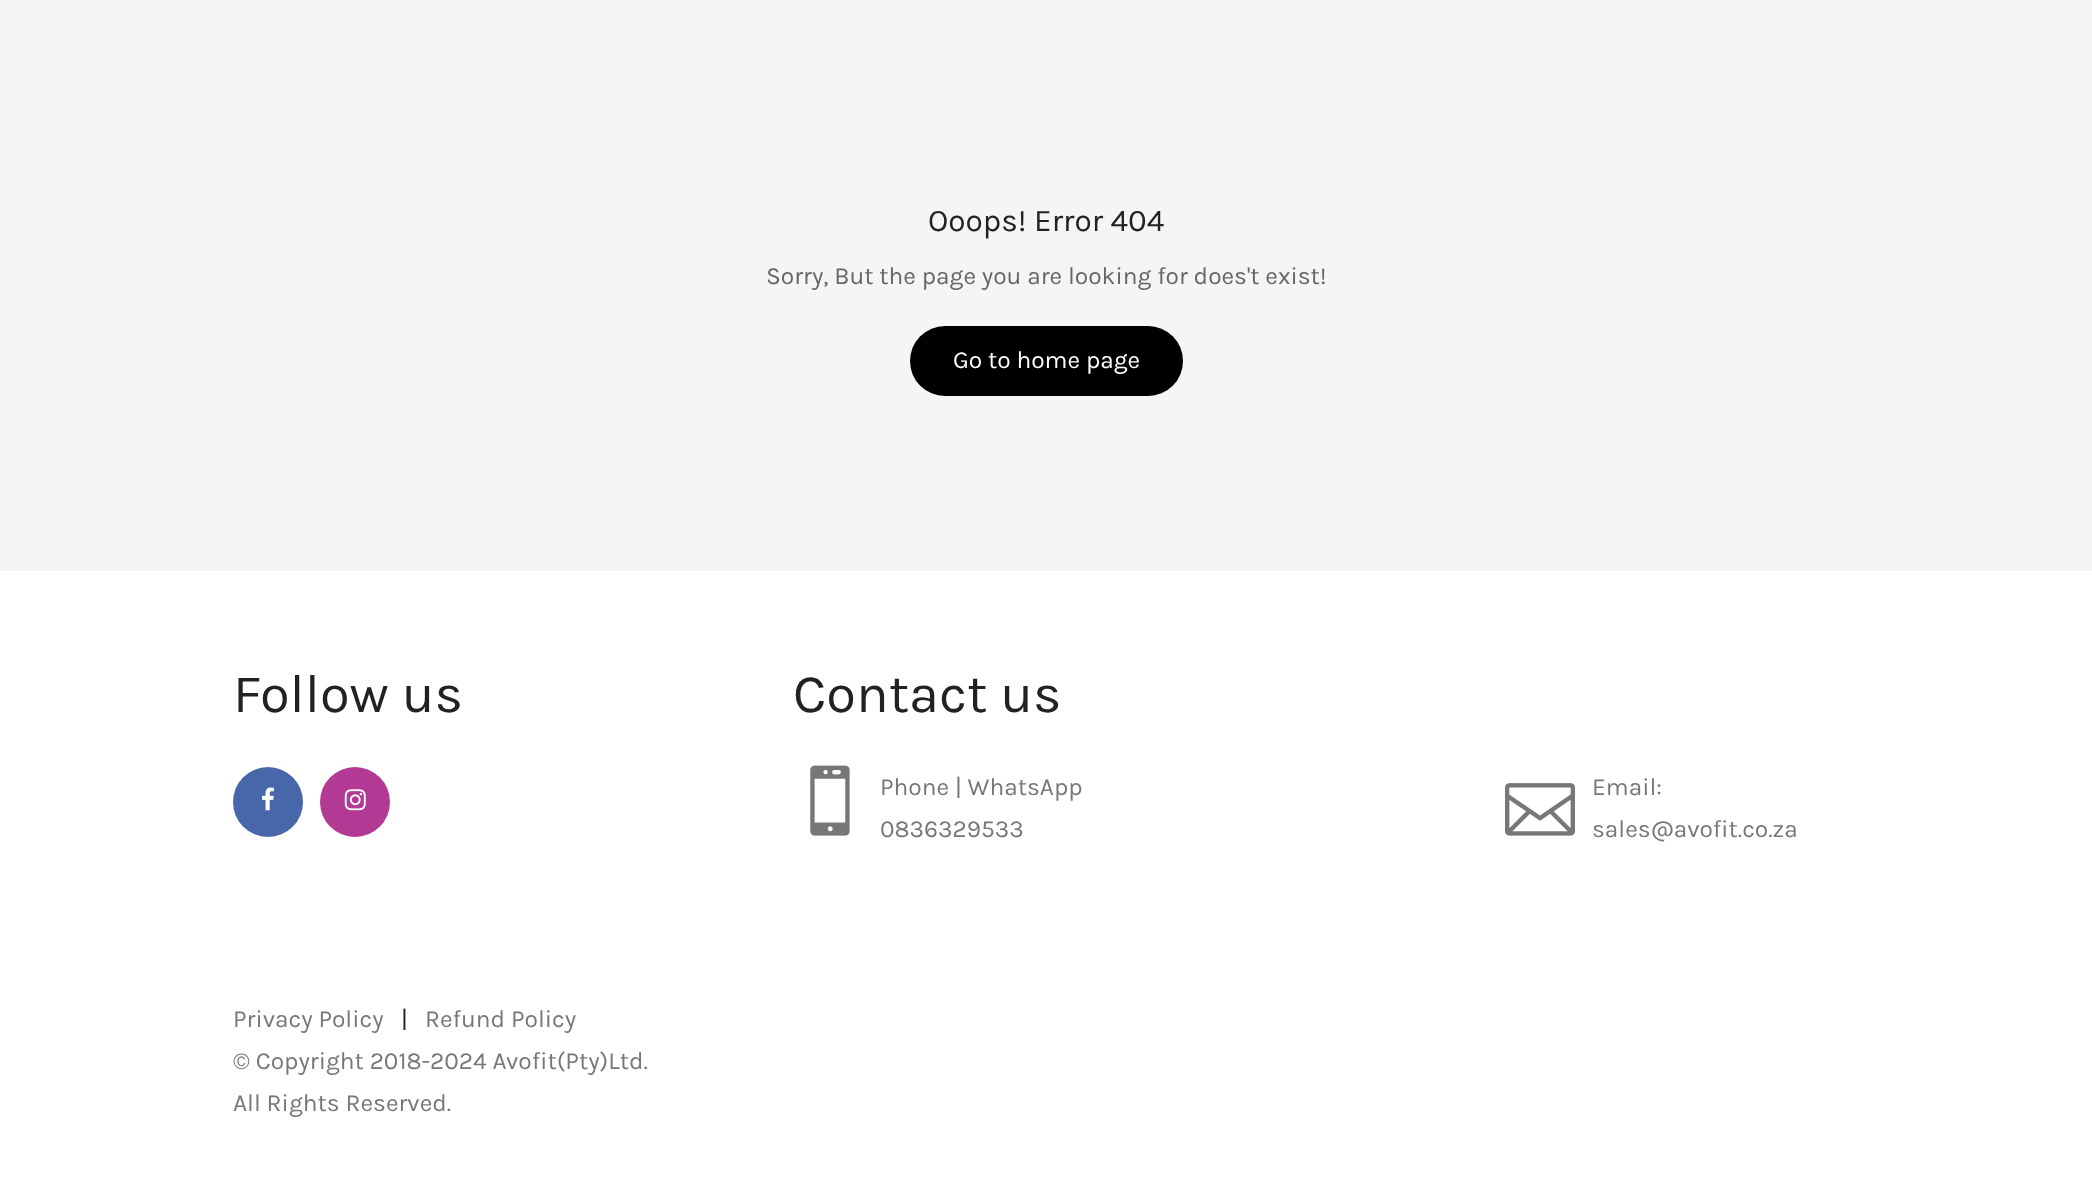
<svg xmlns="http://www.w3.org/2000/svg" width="2092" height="1186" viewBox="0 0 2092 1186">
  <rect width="100%" height="100%" fill="rgb(245,245,245)"/>
  <text x="928" y="231" font-family="Karla" font-size="31.5" fill="rgb(34,34,34)">Ooops! Error 404</text>
  <text x="766" y="284" font-family="Karla" font-size="24.5" fill="rgb(102,102,102)">Sorry, But the page you are looking for does't exist!</text>
  <rect x="910" y="326" width="273" height="70" rx="35" fill="rgb(0,0,0)"/>
  <text x="953" y="368" font-family="Karla" font-size="24.5" fill="rgb(255,255,255)">Go to home page</text>
  <rect x="0" y="571" width="2092" height="615" fill="rgb(255,255,255)"/>
  <text x="233" y="712" font-family="Karla" font-size="54.25" fill="rgb(34,34,34)">Follow us</text>
  <circle cx="268" cy="802" r="35" fill="rgb(72,103,170)"/>
  <image x="262" y="787" width="12" height="24" href="pic1.png"/>
  <circle cx="355" cy="802" r="35" fill="rgb(178,58,148)"/>
  <image x="344" y="789" width="22" height="22" href="pic2.png"/>
  <text x="793" y="712" font-family="Karla" font-size="54.25" fill="rgb(34,34,34)">Contact us</text>
  <image x="810" y="765" width="40" height="71" href="pic3.png"/>
  <g font-family="Karla" font-size="24.5" fill="rgb(119,119,119)">
    <text>
      <tspan x="880" y="795">Phone | WhatsApp</tspan>
      <tspan x="880" y="837">0836329533</tspan>
    </text>
  </g>
  <image x="1505" y="783" width="70" height="53" href="pic4.png"/>
  <g font-family="Karla" font-size="24.5" fill="rgb(119,119,119)">
    <text>
      <tspan x="1592" y="795">Email:</tspan>
      <tspan x="1592" y="837">sales@avofit.co.za</tspan>
    </text>
    <text x="233" y="1027">Privacy Policy</text>
  </g>
  <text x="401" y="1027" font-family="Karla" font-size="24.5" fill="rgb(34,34,34)">|</text>
  <g font-family="Karla" font-size="24.5" fill="rgb(119,119,119)">
    <text x="425" y="1027">Refund Policy</text>
    <text>
      <tspan x="233" y="1069">© Copyright 2018-2024 Avofit(Pty)Ltd.</tspan>
      <tspan x="233" y="1111">All Rights Reserved.</tspan>
    </text>
  </g>
</svg>
